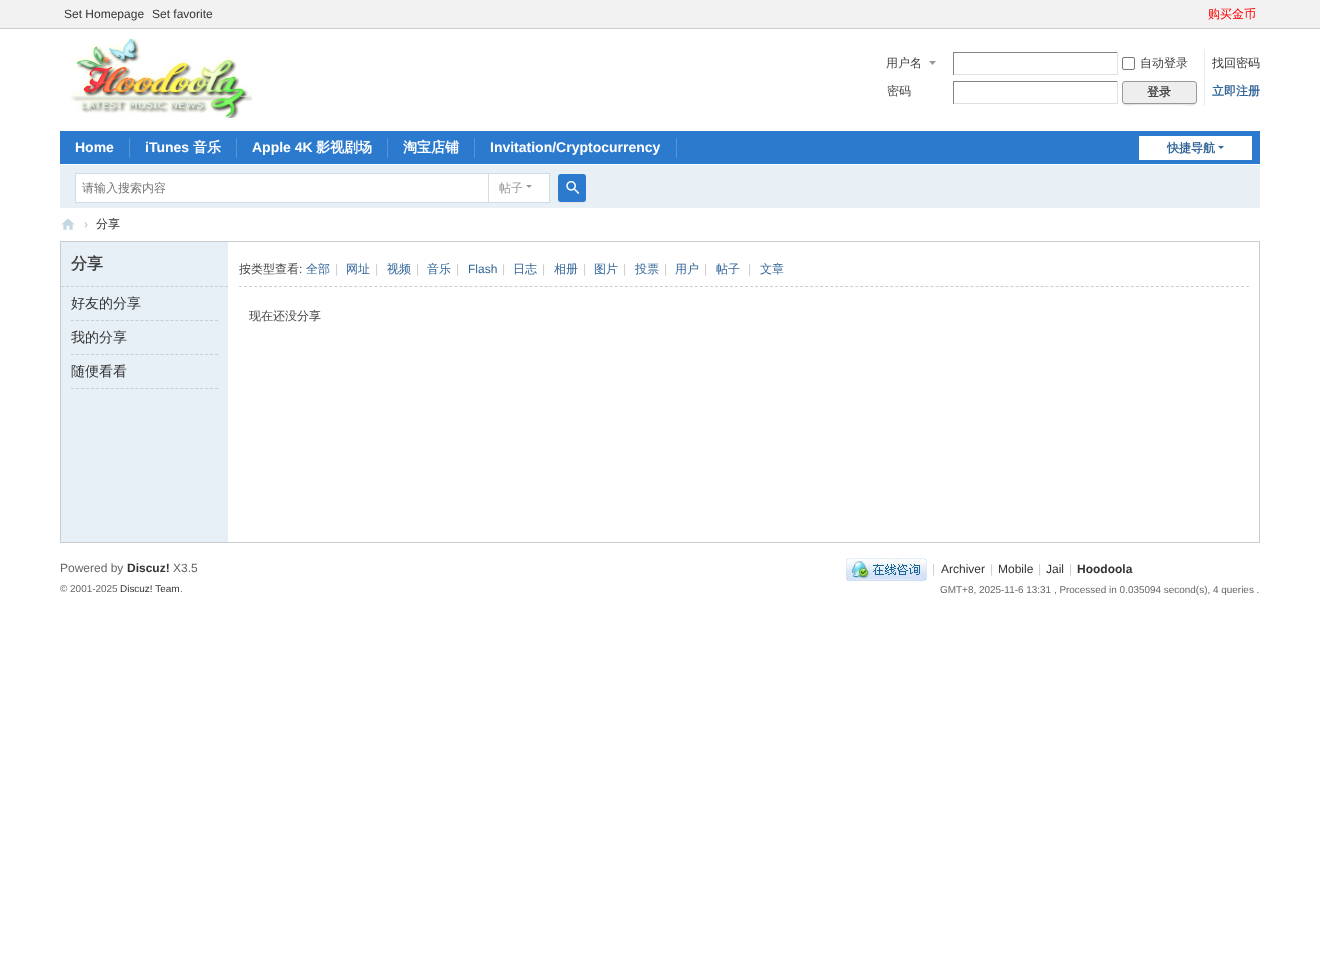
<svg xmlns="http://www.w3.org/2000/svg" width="1320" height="967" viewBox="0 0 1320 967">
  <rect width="100%" height="100%" fill="rgb(255,255,255)"/>
  <rect x="0" y="0" width="1320" height="28" fill="rgb(242,242,242)"/>
  <rect x="0" y="28" width="1320" height="1" fill="rgb(205,205,205)"/>
  <g font-family="Liberation Sans" font-size="12" fill="rgb(51,51,51)">
    <text x="64" y="18">Set Homepage</text>
    <text x="152" y="18">Set favorite</text>
  </g>
  <text x="1208" y="18" font-family="WenQuanYi Zen Hei" font-size="12" font-weight="500" fill="rgb(255,0,0)">购买金币</text>
  <image x="70" y="39" width="182" height="79" href="pic1.png"/>
  <path d="M936 61H929L932.5 65Z" fill="rgb(153,153,153)"/>
  <text x="886" y="67" font-family="WenQuanYi Zen Hei" font-size="12" font-weight="500" fill="rgb(68,68,68)">用户名</text>
  <rect x="953" y="52" width="165" height="1" fill="rgb(132,132,132)"/>
  <rect x="1117" y="52" width="1" height="23" fill="rgb(224,224,224)"/>
  <rect x="953" y="74" width="165" height="1" fill="rgb(224,224,224)"/>
  <rect x="953" y="52" width="1" height="23" fill="rgb(132,132,132)"/>
  <rect x="1122.5" y="57.5" width="12" height="12" rx="1.5" fill="none" stroke="rgb(118,118,118)"/>
  <text x="1140" y="67" font-family="WenQuanYi Zen Hei" font-size="12" font-weight="500" fill="rgb(68,68,68)">自动登录</text>
  <text x="1212" y="67" font-family="WenQuanYi Zen Hei" font-size="12" font-weight="500" fill="rgb(51,51,51)">找回密码</text>
  <text x="887" y="95" font-family="WenQuanYi Zen Hei" font-size="12" font-weight="500" fill="rgb(68,68,68)">密码</text>
  <rect x="953" y="81" width="165" height="1" fill="rgb(132,132,132)"/>
  <rect x="1117" y="81" width="1" height="23" fill="rgb(224,224,224)"/>
  <rect x="953" y="103" width="165" height="1" fill="rgb(224,224,224)"/>
  <rect x="953" y="81" width="1" height="23" fill="rgb(132,132,132)"/>
  <rect x="1204" y="49" width="1" height="57" fill="rgb(229,237,242)"/>
  <path d="M1122 101C1122 108 1132 105 1136 105H1182C1187 105 1197 108 1197 101C1197 103 1196 104 1194 104H1125C1123 104 1122 103 1122 101Z" fill="rgb(229,229,229)"/>
  <rect x="1122.5" y="81.5" width="74" height="22" rx="2.5" fill="rgb(238,238,238)" stroke="rgb(153,153,153)"/>
  <text x="1147" y="96" font-family="WenQuanYi Zen Hei" font-size="12" font-weight="bold" fill="rgb(68,68,68)">登录</text>
  <text x="1212" y="95" font-family="WenQuanYi Zen Hei" font-size="12" font-weight="bold" fill="rgb(51,102,153)">立即注册</text>
  <rect x="60" y="131" width="1200" height="33" fill="rgb(43,122,205)"/>
  <rect x="129" y="138" width="1" height="20" fill="rgb(85,149,215)"/>
  <text x="75" y="152" font-family="Liberation Sans" font-size="14" font-weight="bold" fill="rgb(255,255,255)">Home</text>
  <rect x="236" y="138" width="1" height="20" fill="rgb(85,149,215)"/>
  <text x="145" y="152" font-family="Liberation Sans" font-size="14" font-weight="bold" fill="rgb(255,255,255)">iTunes</text>
  <text x="193" y="152" font-family="WenQuanYi Zen Hei" font-size="14" font-weight="bold" fill="rgb(255,255,255)">音乐</text>
  <rect x="387" y="138" width="1" height="20" fill="rgb(85,149,215)"/>
  <text x="252" y="152" font-family="Liberation Sans" font-size="14" font-weight="bold" fill="rgb(255,255,255)">Apple 4K</text>
  <text x="316" y="152" font-family="WenQuanYi Zen Hei" font-size="14" font-weight="bold" fill="rgb(255,255,255)">影视剧场</text>
  <rect x="474" y="138" width="1" height="20" fill="rgb(85,149,215)"/>
  <text x="403" y="152" font-family="WenQuanYi Zen Hei" font-size="14" font-weight="bold" fill="rgb(255,255,255)">淘宝店铺</text>
  <rect x="676" y="138" width="1" height="20" fill="rgb(85,149,215)"/>
  <text x="490" y="152" font-family="Liberation Sans" font-size="14" font-weight="bold" fill="rgb(255,255,255)">Invitation/Cryptocurrency</text>
  <rect x="1139" y="136" width="113" height="24" fill="rgb(255,255,255)"/>
  <text x="1167" y="152" font-family="WenQuanYi Zen Hei" font-size="12" font-weight="bold" fill="rgb(51,102,153)">快捷导航</text>
  <path d="M1218 146H1224L1221 149Z" fill="rgb(51,102,153)"/>
  <rect x="60" y="165" width="1200" height="43" fill="rgb(232,239,245)"/>
  <rect x="487" y="173" width="63" height="1" fill="rgb(207,222,227)"/>
  <rect x="549" y="173" width="1" height="30" fill="rgb(207,222,227)"/>
  <rect x="487" y="202" width="63" height="1" fill="rgb(207,222,227)"/>
  <rect x="75.5" y="173.5" width="413" height="29" fill="rgb(255,255,255)" stroke="rgb(207,222,227)"/>
  <text x="82" y="192" font-family="WenQuanYi Zen Hei" font-size="12" font-weight="500" fill="rgb(117,117,117)">请输入搜索内容</text>
  <rect x="489" y="174" width="60" height="28" fill="rgb(255,255,255)"/>
  <text x="499" y="192" font-family="WenQuanYi Zen Hei" font-size="12" font-weight="500" fill="rgb(153,153,153)">帖子</text>
  <path d="M526 185H532L529 188Z" fill="rgb(153,153,153)"/>
  <path d="M558 199C558 203.5 561 203 564.5 203H579.5C583 203 586 203.5 586 199C586 200.5 584.5 202 583 202H561C559.5 202 558 200.5 558 199Z" fill="rgb(229,229,229)"/>
  <rect x="558" y="174" width="28" height="28" rx="3" fill="rgb(43,122,205)"/>
  <image x="566" y="181" width="14" height="13" href="pic2.png"/>
  <image x="61" y="218" width="14" height="12" href="pic3.png"/>
  <text x="84" y="228" font-family="Liberation Sans" font-size="12" fill="rgb(189,189,189)">›</text>
  <text x="96" y="228" font-family="WenQuanYi Zen Hei" font-size="12" font-weight="500" fill="rgb(51,51,51)">分享</text>
  <rect x="61" y="242" width="167" height="300" fill="rgb(232,240,247)"/>
  <rect x="60.5" y="241.5" width="1199" height="301" fill="none" stroke="rgb(204,204,204)"/>
  <path d="M61 286.5H228" fill="none" stroke="rgb(205,205,205)" stroke-dasharray="3 1.97"/>
  <text x="71" y="269" font-family="WenQuanYi Zen Hei" font-size="16" font-weight="bold" fill="rgb(68,68,68)">分享</text>
  <path d="M71 320.5H218" fill="none" stroke="rgb(204,204,204)" stroke-dasharray="3 1.97"/>
  <text x="71" y="308" font-family="WenQuanYi Zen Hei" font-size="14" font-weight="500" fill="rgb(51,51,51)">好友的分享</text>
  <path d="M71 354.5H218" fill="none" stroke="rgb(204,204,204)" stroke-dasharray="3 1.97"/>
  <text x="71" y="342" font-family="WenQuanYi Zen Hei" font-size="14" font-weight="500" fill="rgb(51,51,51)">我的分享</text>
  <path d="M71 388.5H218" fill="none" stroke="rgb(204,204,204)" stroke-dasharray="3 1.97"/>
  <text x="71" y="376" font-family="WenQuanYi Zen Hei" font-size="14" font-weight="500" fill="rgb(51,51,51)">随便看看</text>
  <path d="M239 286.5H1249" fill="none" stroke="rgb(205,205,205)" stroke-dasharray="3 2.01"/>
  <text x="239" y="273" font-family="WenQuanYi Zen Hei" font-size="12" font-weight="500" fill="rgb(68,68,68)">按类型查看</text>
  <text x="299" y="273" font-family="Liberation Sans" font-size="12" fill="rgb(68,68,68)">:</text>
  <text x="306" y="273" font-family="WenQuanYi Zen Hei" font-size="12" font-weight="500" fill="rgb(51,102,153)">全部</text>
  <text x="335" y="273" font-family="Liberation Sans" font-size="12" fill="rgb(204,204,204)">|</text>
  <text x="346" y="273" font-family="WenQuanYi Zen Hei" font-size="12" font-weight="500" fill="rgb(51,102,153)">网址</text>
  <text x="375" y="273" font-family="Liberation Sans" font-size="12" fill="rgb(204,204,204)">|</text>
  <text x="387" y="273" font-family="WenQuanYi Zen Hei" font-size="12" font-weight="500" fill="rgb(51,102,153)">视频</text>
  <text x="416" y="273" font-family="Liberation Sans" font-size="12" fill="rgb(204,204,204)">|</text>
  <text x="427" y="273" font-family="WenQuanYi Zen Hei" font-size="12" font-weight="500" fill="rgb(51,102,153)">音乐</text>
  <text x="456" y="273" font-family="Liberation Sans" font-size="12" fill="rgb(204,204,204)">|</text>
  <text x="468" y="273" font-family="Liberation Sans" font-size="12" fill="rgb(51,102,153)">Flash</text>
  <text x="502" y="273" font-family="Liberation Sans" font-size="12" fill="rgb(204,204,204)">|</text>
  <text x="513" y="273" font-family="WenQuanYi Zen Hei" font-size="12" font-weight="500" fill="rgb(51,102,153)">日志</text>
  <text x="542" y="273" font-family="Liberation Sans" font-size="12" fill="rgb(204,204,204)">|</text>
  <text x="554" y="273" font-family="WenQuanYi Zen Hei" font-size="12" font-weight="500" fill="rgb(51,102,153)">相册</text>
  <text x="583" y="273" font-family="Liberation Sans" font-size="12" fill="rgb(204,204,204)">|</text>
  <text x="594" y="273" font-family="WenQuanYi Zen Hei" font-size="12" font-weight="500" fill="rgb(51,102,153)">图片</text>
  <text x="623" y="273" font-family="Liberation Sans" font-size="12" fill="rgb(204,204,204)">|</text>
  <text x="635" y="273" font-family="WenQuanYi Zen Hei" font-size="12" font-weight="500" fill="rgb(51,102,153)">投票</text>
  <text x="664" y="273" font-family="Liberation Sans" font-size="12" fill="rgb(204,204,204)">|</text>
  <text x="675" y="273" font-family="WenQuanYi Zen Hei" font-size="12" font-weight="500" fill="rgb(51,102,153)">用户</text>
  <text x="704" y="273" font-family="Liberation Sans" font-size="12" fill="rgb(204,204,204)">|</text>
  <text x="716" y="273" font-family="WenQuanYi Zen Hei" font-size="12" font-weight="500" fill="rgb(51,102,153)">帖子</text>
  <text x="748" y="273" font-family="Liberation Sans" font-size="12" fill="rgb(204,204,204)">|</text>
  <text x="760" y="273" font-family="WenQuanYi Zen Hei" font-size="12" font-weight="500" fill="rgb(51,102,153)">文章</text>
  <text x="249" y="320" font-family="WenQuanYi Zen Hei" font-size="12" font-weight="500" fill="rgb(68,68,68)">现在还没分享</text>
  <text x="60" y="572" font-family="Liberation Sans" font-size="12" fill="rgb(102,102,102)">Powered by</text>
  <text x="127" y="572" font-family="Liberation Sans" font-size="12" font-weight="bold" fill="rgb(51,51,51)">Discuz!</text>
  <text x="173" y="572" font-family="Liberation Sans" font-size="12" fill="rgb(102,102,102)">X3.5</text>
  <text x="60" y="592" font-family="Liberation Sans" font-size="9.95" fill="rgb(102,102,102)">© 2001-2025</text>
  <text x="120" y="592" font-family="Liberation Sans" font-size="9.95" fill="rgb(51,51,51)">Discuz! Team</text>
  <text x="180" y="592" font-family="Liberation Sans" font-size="9.95" fill="rgb(102,102,102)">.</text>
  <image x="846" y="558" width="81" height="23" href="pic4.png"/>
  <text x="932" y="573" font-family="Liberation Sans" font-size="12" fill="rgb(204,204,204)">|</text>
  <text x="941" y="573" font-family="Liberation Sans" font-size="12" fill="rgb(51,51,51)">Archiver</text>
  <text x="990" y="573" font-family="Liberation Sans" font-size="12" fill="rgb(204,204,204)">|</text>
  <text x="998" y="573" font-family="Liberation Sans" font-size="12" fill="rgb(51,51,51)">Mobile</text>
  <text x="1038" y="573" font-family="Liberation Sans" font-size="12" fill="rgb(204,204,204)">|</text>
  <text x="1046" y="573" font-family="Liberation Sans" font-size="12" fill="rgb(51,51,51)">Jail</text>
  <text x="1069" y="573" font-family="Liberation Sans" font-size="12" fill="rgb(204,204,204)">|</text>
  <text x="1077" y="573" font-family="Liberation Sans" font-size="12" font-weight="bold" fill="rgb(51,51,51)">Hoodoola</text>
  <text x="940" y="593" font-family="Liberation Sans" font-size="9.95" fill="rgb(102,102,102)">GMT+8, 2025-11-6 13:31 , Processed in 0.035094 second(s), 4 queries .</text>
</svg>
